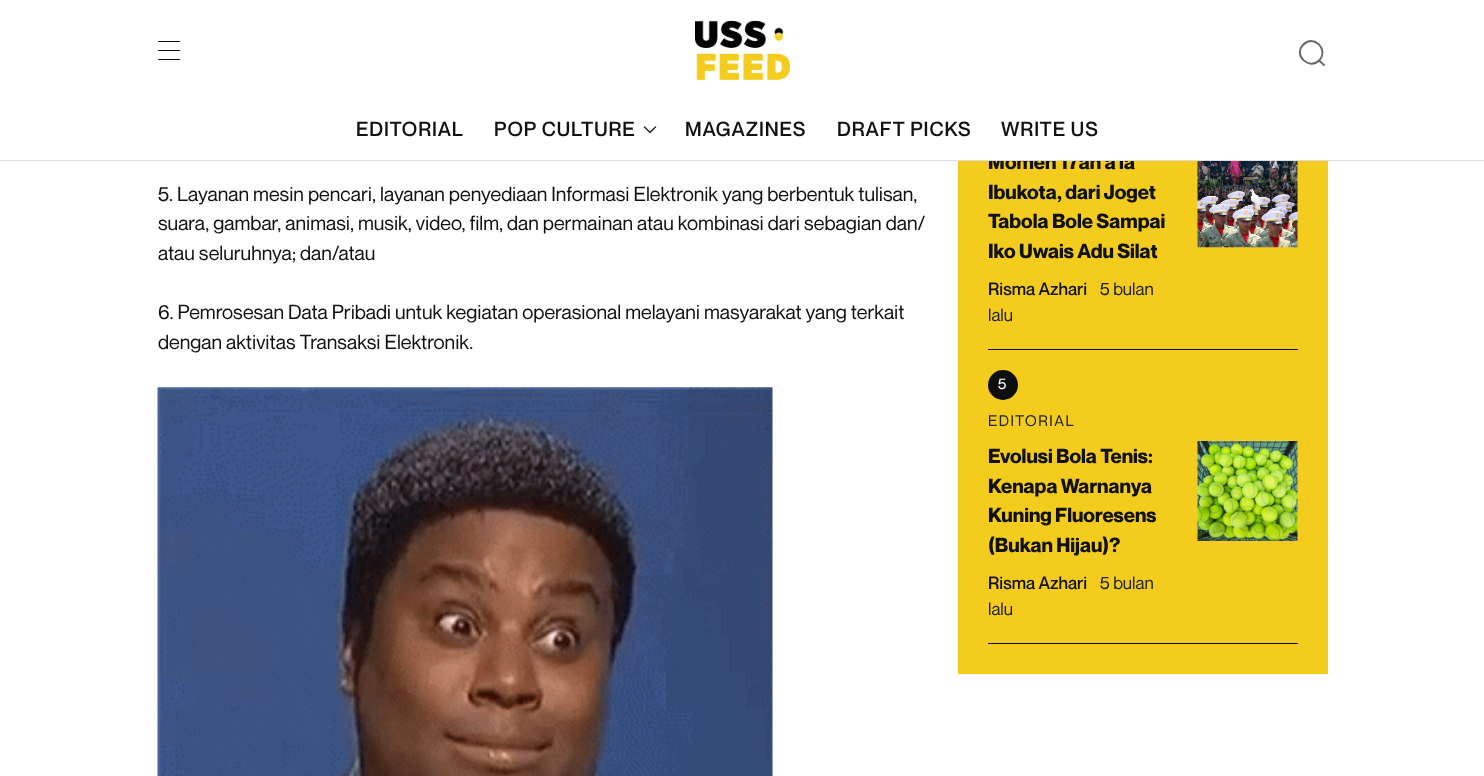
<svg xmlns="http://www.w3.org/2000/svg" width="1484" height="776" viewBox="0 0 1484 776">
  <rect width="100%" height="100%" fill="rgb(255,255,255)"/>
  <rect x="958" y="161" width="370" height="513" fill="rgb(243,204,29)"/>
  <text x="988" y="169" font-family="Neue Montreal" font-size="20" font-weight="bold" fill="rgb(17,17,17)">Momen 17an a la</text>
  <rect x="988" y="154" width="145" height="6" fill="rgb(255,255,255)"/>
  <rect x="0" y="160" width="1484" height="1" fill="rgb(221,221,221)"/>
  <rect x="158" y="41" width="22" height="1" rx="0.5" fill="rgb(14,14,14)"/>
  <rect x="158" y="50" width="22" height="1" rx="0.5" fill="rgb(14,14,14)"/>
  <rect x="158" y="59" width="22" height="1" rx="0.5" fill="rgb(14,14,14)"/>
  <image x="695" y="20" width="95" height="60" href="pic1.png"/>
  <path d="M1324 65L1319 60.5M1319 60.5C1329.5 50 1314 34 1303.5 44.5C1292.5 55 1309 70.5 1319 60.5Z" fill="none" stroke="rgb(102,102,102)" stroke-width="1.9" stroke-linecap="round"/>
  <g font-family="Neue Montreal" font-size="20" font-weight="500" letter-spacing="0.9" fill="rgb(17,17,17)">
    <text x="356" y="136">EDITORIAL</text>
    <text x="494" y="136">POP CULTURE</text>
  </g>
  <image x="643" y="126" width="14" height="8" href="pic2.png"/>
  <g font-family="Neue Montreal" font-size="20" font-weight="500" letter-spacing="0.9" fill="rgb(17,17,17)">
    <text x="685" y="136">MAGAZINES</text>
    <text x="837" y="136">DRAFT PICKS</text>
    <text x="1001" y="136">WRITE US</text>
  </g>
  <g font-family="Neue Montreal" font-size="20" fill="rgb(17,17,17)">
    <text>
      <tspan x="158" y="201">5. Layanan mesin pencari, layanan penyediaan Informasi Elektronik yang berbentuk tulisan,</tspan>
      <tspan x="158" y="230">suara, gambar, animasi, musik, video, film, dan permainan atau kombinasi dari sebagian dan/</tspan>
      <tspan x="158" y="260">atau seluruhnya; dan/atau</tspan>
    </text>
    <text>
      <tspan x="158" y="319">6. Pemrosesan Data Pribadi untuk kegiatan operasional melayani masyarakat yang terkait</tspan>
      <tspan x="158" y="349">dengan aktivitas Transaksi Elektronik.</tspan>
    </text>
  </g>
  <image x="157" y="387" width="616" height="389" href="pic3.png"/>
  <rect x="988" y="349" width="310" height="1" fill="rgb(14,14,14)"/>
  <g font-family="Neue Montreal" font-size="20" font-weight="bold" fill="rgb(17,17,17)">
    <text>
      <tspan x="988" y="199">Ibukota, dari Joget</tspan>
      <tspan x="988" y="228">Tabola Bole Sampai</tspan>
      <tspan x="988" y="258">Iko Uwais Adu Silat</tspan>
    </text>
  </g>
  <text x="988" y="295" font-family="Neue Montreal" font-size="17.5" font-weight="500" fill="rgb(17,17,17)">Risma Azhari</text>
  <g font-family="Neue Montreal" font-size="17.5" fill="rgb(34,34,34)">
    <text x="1100" y="295">5 bulan</text>
    <text x="988" y="321">lalu</text>
  </g>
  <image x="1197" y="161" width="101" height="87" href="pic4.png"/>
  <circle cx="1003" cy="385" r="15" fill="rgb(14,14,14)"/>
  <text x="998" y="389" font-family="Neue Montreal" font-size="15" fill="rgb(255,255,255)">5</text>
  <rect x="988" y="643" width="310" height="1" fill="rgb(14,14,14)"/>
  <text x="988" y="426" font-family="Neue Montreal" font-size="15" letter-spacing="1.5" fill="rgb(34,34,34)">EDITORIAL</text>
  <g font-family="Neue Montreal" font-size="20" font-weight="bold" fill="rgb(17,17,17)">
    <text>
      <tspan x="988" y="463">Evolusi Bola Tenis:</tspan>
      <tspan x="988" y="493">Kenapa Warnanya</tspan>
      <tspan x="988" y="522">Kuning Fluoresens</tspan>
      <tspan x="988" y="552">(Bukan Hijau)?</tspan>
    </text>
  </g>
  <text x="988" y="589" font-family="Neue Montreal" font-size="17.5" font-weight="500" fill="rgb(17,17,17)">Risma Azhari</text>
  <g font-family="Neue Montreal" font-size="17.5" fill="rgb(34,34,34)">
    <text x="1100" y="589">5 bulan</text>
    <text x="988" y="615">lalu</text>
  </g>
  <image x="1197" y="441" width="101" height="100" href="pic5.png"/>
</svg>
